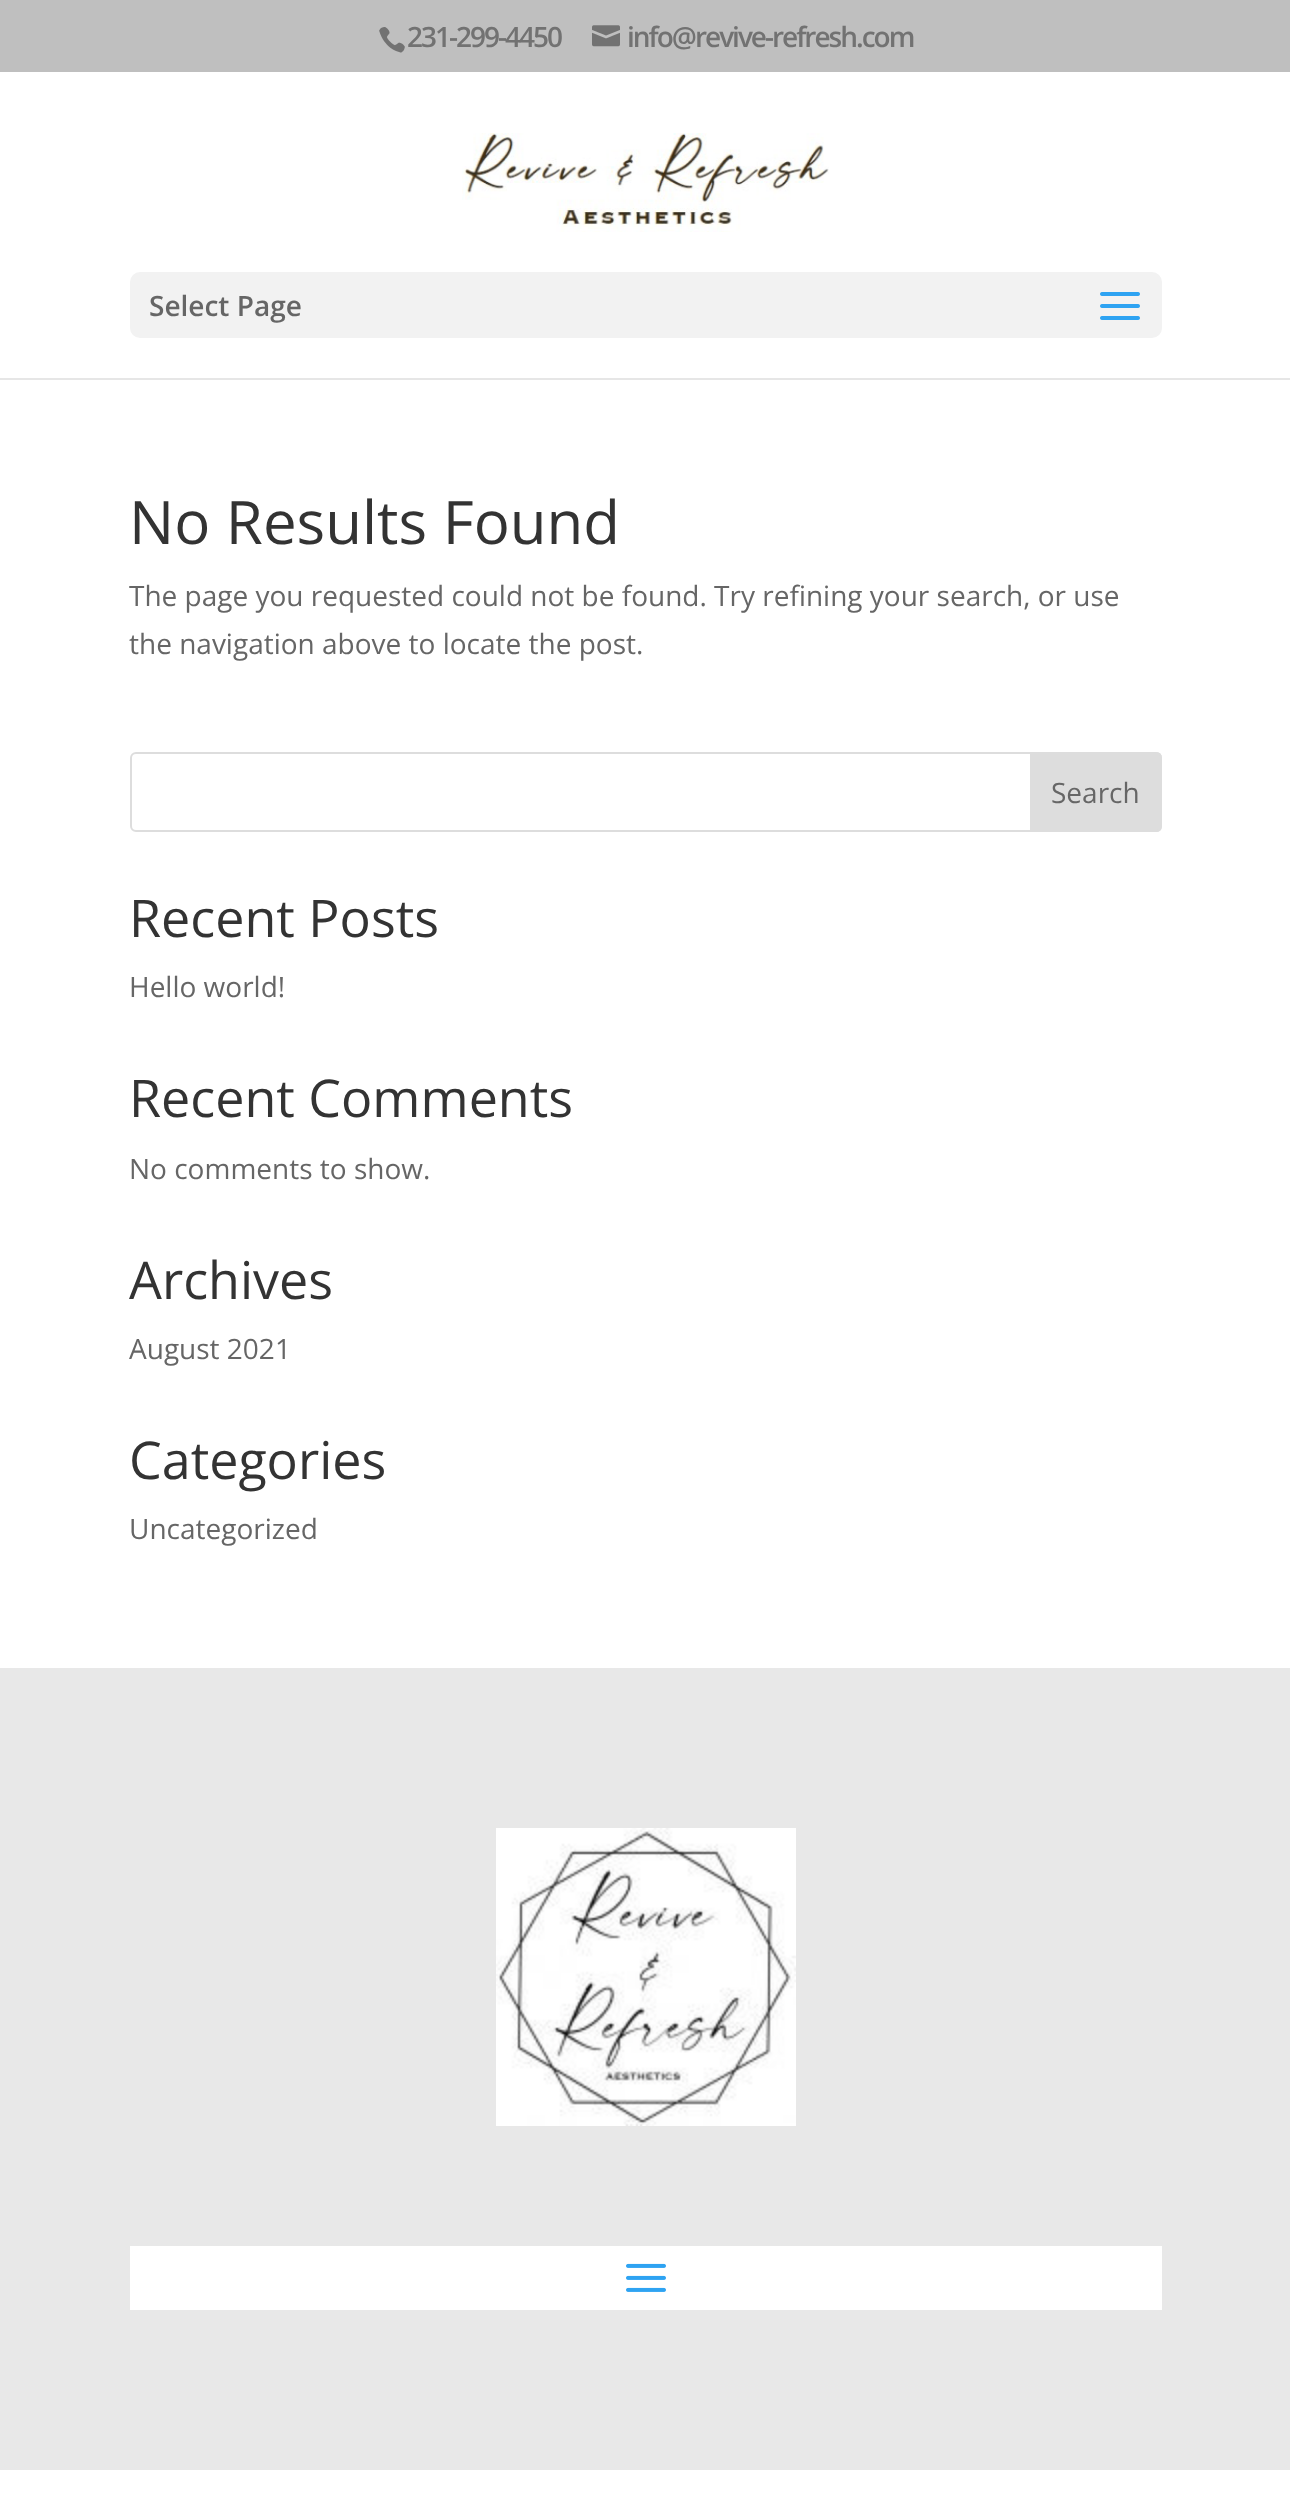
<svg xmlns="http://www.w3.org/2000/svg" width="1290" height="2496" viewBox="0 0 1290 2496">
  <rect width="100%" height="100%" fill="rgb(255,255,255)"/>
  <rect x="0" y="0" width="1290" height="72" fill="rgb(191,191,191)"/>
  <image x="379" y="27" width="26" height="26" href="pic1.png"/>
  <text x="407" y="47" font-family="Open Sans" font-size="28" font-weight="600" letter-spacing="-2" fill="rgb(114,114,114)">231-299-4450</text>
  <image x="592" y="25" width="28" height="22" href="pic2.png"/>
  <text x="627" y="47" font-family="Open Sans" font-size="28" font-weight="600" letter-spacing="-2" fill="rgb(114,114,114)">info@revive-refresh.com</text>
  <rect x="0" y="378" width="1290" height="2" fill="rgb(230,230,230)"/>
  <image x="462" y="133" width="367" height="99" href="pic3.png"/>
  <rect x="130" y="272" width="1032" height="66" rx="10" fill="rgb(242,242,242)"/>
  <text x="149" y="316" font-family="Open Sans" font-size="28" font-weight="600" fill="rgb(102,102,102)">Select Page</text>
  <image x="1100" y="292" width="40" height="28" href="pic4.png"/>
  <text x="129" y="544" font-family="Open Sans" font-size="60" fill="rgb(51,51,51)">No Results Found</text>
  <g font-family="Open Sans" font-size="28" fill="rgb(102,102,102)">
    <text>
      <tspan x="129" y="606">The page you requested could not be found. Try refining your search, or use</tspan>
      <tspan x="129" y="654">the navigation above to locate the post.</tspan>
    </text>
  </g>
  <rect x="131" y="753" width="1030" height="78" rx="5" fill="none" stroke="rgb(221,221,221)" stroke-width="2"/>
  <path d="M1031 753H1156C1159 753 1161 755 1161 758V826C1161 829 1159 831 1156 831H1031Z" fill="rgb(221,221,221)" stroke="rgb(221,221,221)" stroke-width="2"/>
  <text x="1051" y="803" font-family="Open Sans" font-size="28" fill="rgb(102,102,102)">Search</text>
  <text x="129" y="937" font-family="Open Sans" font-size="52" fill="rgb(51,51,51)">Recent Posts</text>
  <text x="129" y="997" font-family="Open Sans" font-size="28" fill="rgb(102,102,102)">Hello world!</text>
  <text x="129" y="1117" font-family="Open Sans" font-size="52" fill="rgb(51,51,51)">Recent Comments</text>
  <text x="129" y="1179" font-family="Open Sans" font-size="28" fill="rgb(102,102,102)">No comments to show.</text>
  <text x="129" y="1299" font-family="Open Sans" font-size="52" fill="rgb(51,51,51)">Archives</text>
  <text x="129" y="1359" font-family="Open Sans" font-size="28" fill="rgb(102,102,102)">August 2021</text>
  <text x="129" y="1479" font-family="Open Sans" font-size="52" fill="rgb(51,51,51)">Categories</text>
  <text x="129" y="1539" font-family="Open Sans" font-size="28" fill="rgb(102,102,102)">Uncategorized</text>
  <rect x="0" y="1668" width="1290" height="802" fill="rgb(232,232,232)"/>
  <image x="496" y="1828" width="300" height="298" href="pic5.png"/>
  <rect x="130" y="2246" width="1032" height="64" fill="rgb(255,255,255)"/>
  <image x="626" y="2263" width="40" height="29" href="pic6.png"/>
</svg>
